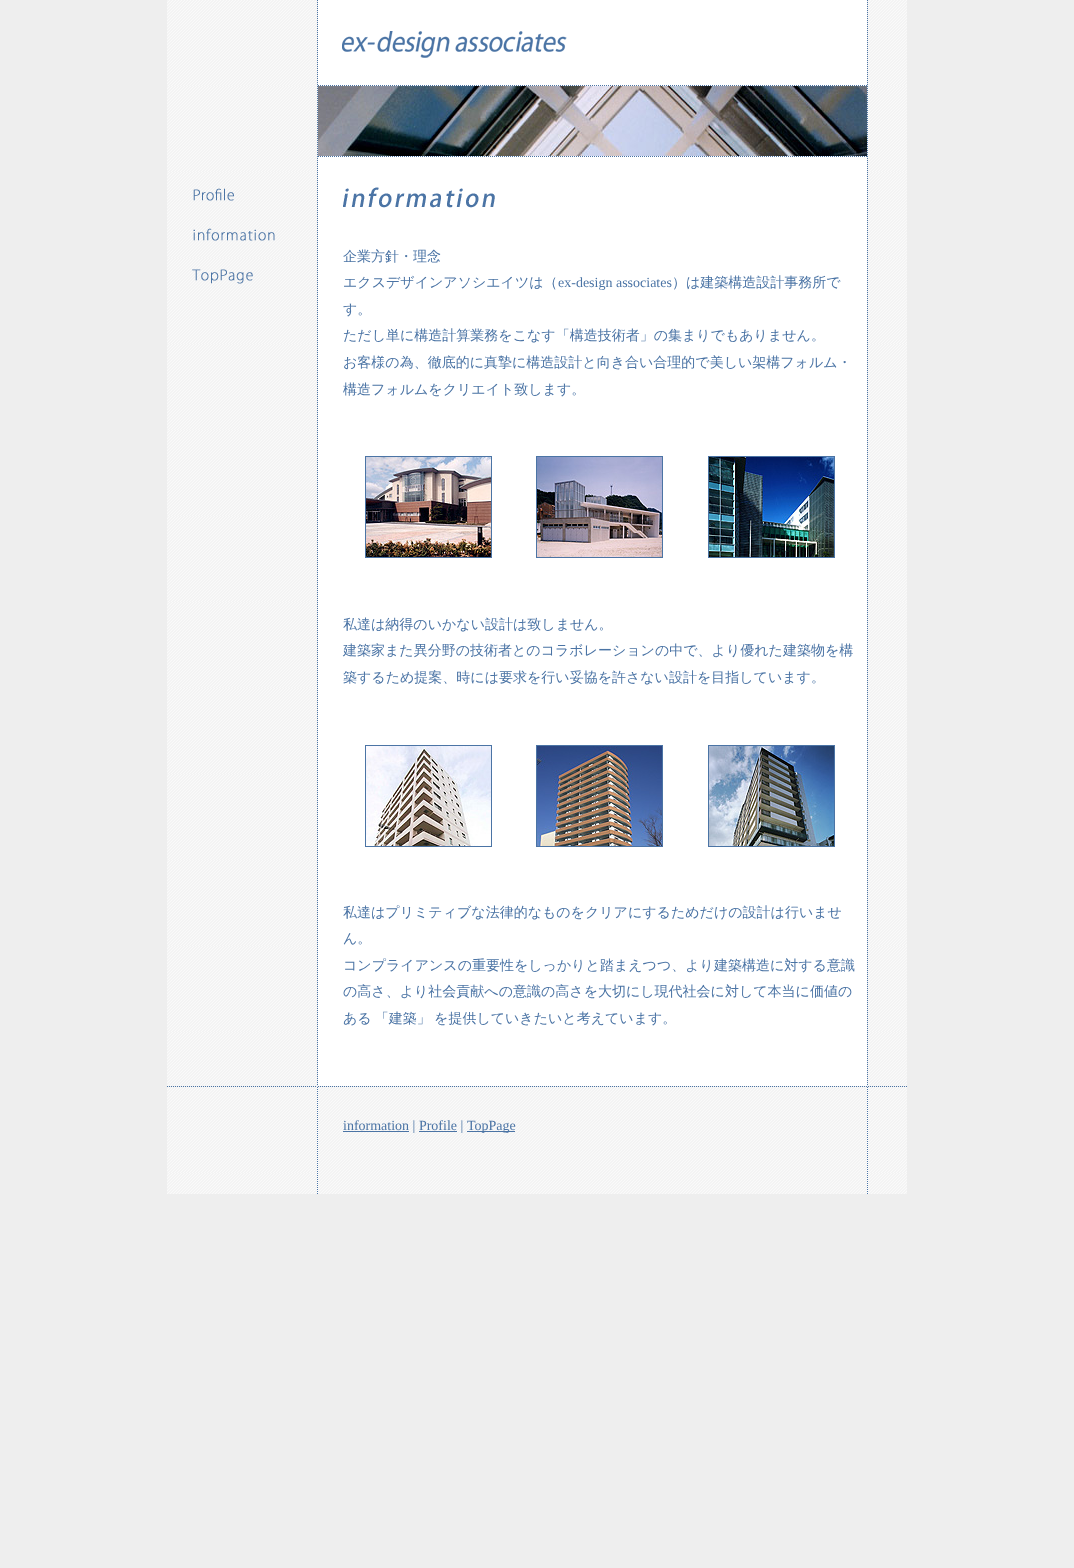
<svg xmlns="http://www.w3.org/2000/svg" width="1074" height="1568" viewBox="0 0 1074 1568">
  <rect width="100%" height="100%" fill="rgb(238,238,238)"/>
  <image x="167" y="0" width="150" height="1086" href="pic1.png"/>
  <image x="193" y="188" width="41" height="13" href="pic2.png"/>
  <image x="193" y="228" width="82" height="13" href="pic3.png"/>
  <image x="192" y="269" width="61" height="15" href="pic4.png"/>
  <image x="317" y="0" width="1" height="1085" href="pic5.png"/>
  <rect x="318" y="0" width="549" height="1086" fill="rgb(255,255,255)"/>
  <image x="342" y="31" width="225" height="27" href="pic6.png"/>
  <image x="318" y="85" width="549" height="1" href="pic7.png"/>
  <image x="318" y="86" width="549" height="70" href="pic8.png"/>
  <image x="318" y="156" width="549" height="1" href="pic7.png"/>
  <image x="343" y="187" width="152" height="21" href="pic9.png"/>
  <g font-family="WenQuanYi Zen Hei" font-size="14" font-weight="500" fill="rgb(75,116,165)">
    <text>
      <tspan x="343" y="261">企業方針・理念</tspan>
      <tspan x="343" y="287">エクスデザインアソシエイツは（</tspan>
    </text>
  </g>
  <text x="558" y="287" font-family="Liberation Serif" font-size="14" fill="rgb(75,116,165)">ex-design associates</text>
  <g font-family="WenQuanYi Zen Hei" font-size="14" font-weight="500" fill="rgb(75,116,165)">
    <text x="672" y="287">）は建築構造設計事務所で</text>
    <text>
      <tspan x="343" y="314">す。</tspan>
      <tspan x="343" y="340">ただし単に構造計算業務をこなす「構造技術者」の集まりでもありません。</tspan>
      <tspan x="343" y="367">お客様の為、徹底的に真摯に構造設計と向き合い合理的で美しい架構フォルム・</tspan>
      <tspan x="343" y="394">構造フォルムをクリエイト致します。</tspan>
    </text>
  </g>
  <rect x="365.5" y="456.5" width="126" height="101" fill="none" stroke="rgb(75,116,165)"/>
  <image x="366" y="457" width="125" height="100" href="pic10.png"/>
  <rect x="536.5" y="456.5" width="126" height="101" fill="none" stroke="rgb(75,116,165)"/>
  <image x="537" y="457" width="125" height="100" href="pic11.png"/>
  <rect x="708.5" y="456.5" width="126" height="101" fill="none" stroke="rgb(75,116,165)"/>
  <image x="709" y="457" width="125" height="100" href="pic12.png"/>
  <g font-family="WenQuanYi Zen Hei" font-size="14" font-weight="500" fill="rgb(75,116,165)">
    <text>
      <tspan x="343" y="629">私達は納得のいかない設計は致しません。</tspan>
      <tspan x="343" y="655">建築家また異分野の技術者とのコラボレーションの中で、より優れた建築物を構</tspan>
      <tspan x="343" y="682">築するため提案、時には要求を行い妥協を許さない設計を目指しています。</tspan>
    </text>
  </g>
  <rect x="365.5" y="745.5" width="126" height="101" fill="none" stroke="rgb(75,116,165)"/>
  <image x="366" y="746" width="125" height="100" href="pic13.png"/>
  <rect x="536.5" y="745.5" width="126" height="101" fill="none" stroke="rgb(75,116,165)"/>
  <image x="537" y="746" width="125" height="100" href="pic14.png"/>
  <rect x="708.5" y="745.5" width="126" height="101" fill="none" stroke="rgb(75,116,165)"/>
  <image x="709" y="746" width="125" height="100" href="pic15.png"/>
  <g font-family="WenQuanYi Zen Hei" font-size="14" font-weight="500" fill="rgb(75,116,165)">
    <text>
      <tspan x="343" y="917">私達はプリミティブな法律的なものをクリアにするためだけの設計は行いませ</tspan>
      <tspan x="343" y="943">ん。</tspan>
      <tspan x="343" y="970">コンプライアンスの重要性をしっかりと踏まえつつ、より建築構造に対する意識</tspan>
      <tspan x="343" y="996">の高さ、より社会貢献への意識の高さを大切にし現代社会に対して本当に価値の</tspan>
      <tspan x="343" y="1023" word-spacing="-1">ある 「建築」 を提供していきたいと考えています。</tspan>
    </text>
  </g>
  <image x="867" y="0" width="1" height="1085" href="pic5.png"/>
  <image x="868" y="0" width="39" height="1086" href="pic16.png"/>
  <image x="167" y="1086" width="149" height="1" href="pic17.png"/>
  <image x="318" y="1086" width="549" height="1" href="pic18.png"/>
  <image x="868" y="1086" width="39" height="1" href="pic19.png"/>
  <image x="167" y="1087" width="150" height="107" href="pic20.png"/>
  <rect x="317" y="1087" width="1" height="107" fill="rgb(255,255,255)"/>
  <image x="317" y="1087" width="1" height="107" href="pic21.png"/>
  <image x="318" y="1087" width="549" height="107" href="pic22.png"/>
  <rect x="343" y="1131" width="66" height="1" fill="rgb(75,116,165)"/>
  <text x="343" y="1130" font-family="Liberation Serif" font-size="14" fill="rgb(75,116,165)">information | Profile |</text>
  <rect x="467" y="1131" width="48" height="1" fill="rgb(75,116,165)"/>
  <text x="467" y="1130" font-family="Liberation Serif" font-size="14" fill="rgb(75,116,165)">TopPage</text>
  <rect x="419" y="1131" width="38" height="1" fill="rgb(75,116,165)"/>
  <rect x="867" y="1087" width="1" height="107" fill="rgb(255,255,255)"/>
  <image x="867" y="1087" width="1" height="107" href="pic21.png"/>
  <image x="868" y="1087" width="39" height="107" href="pic23.png"/>
</svg>
